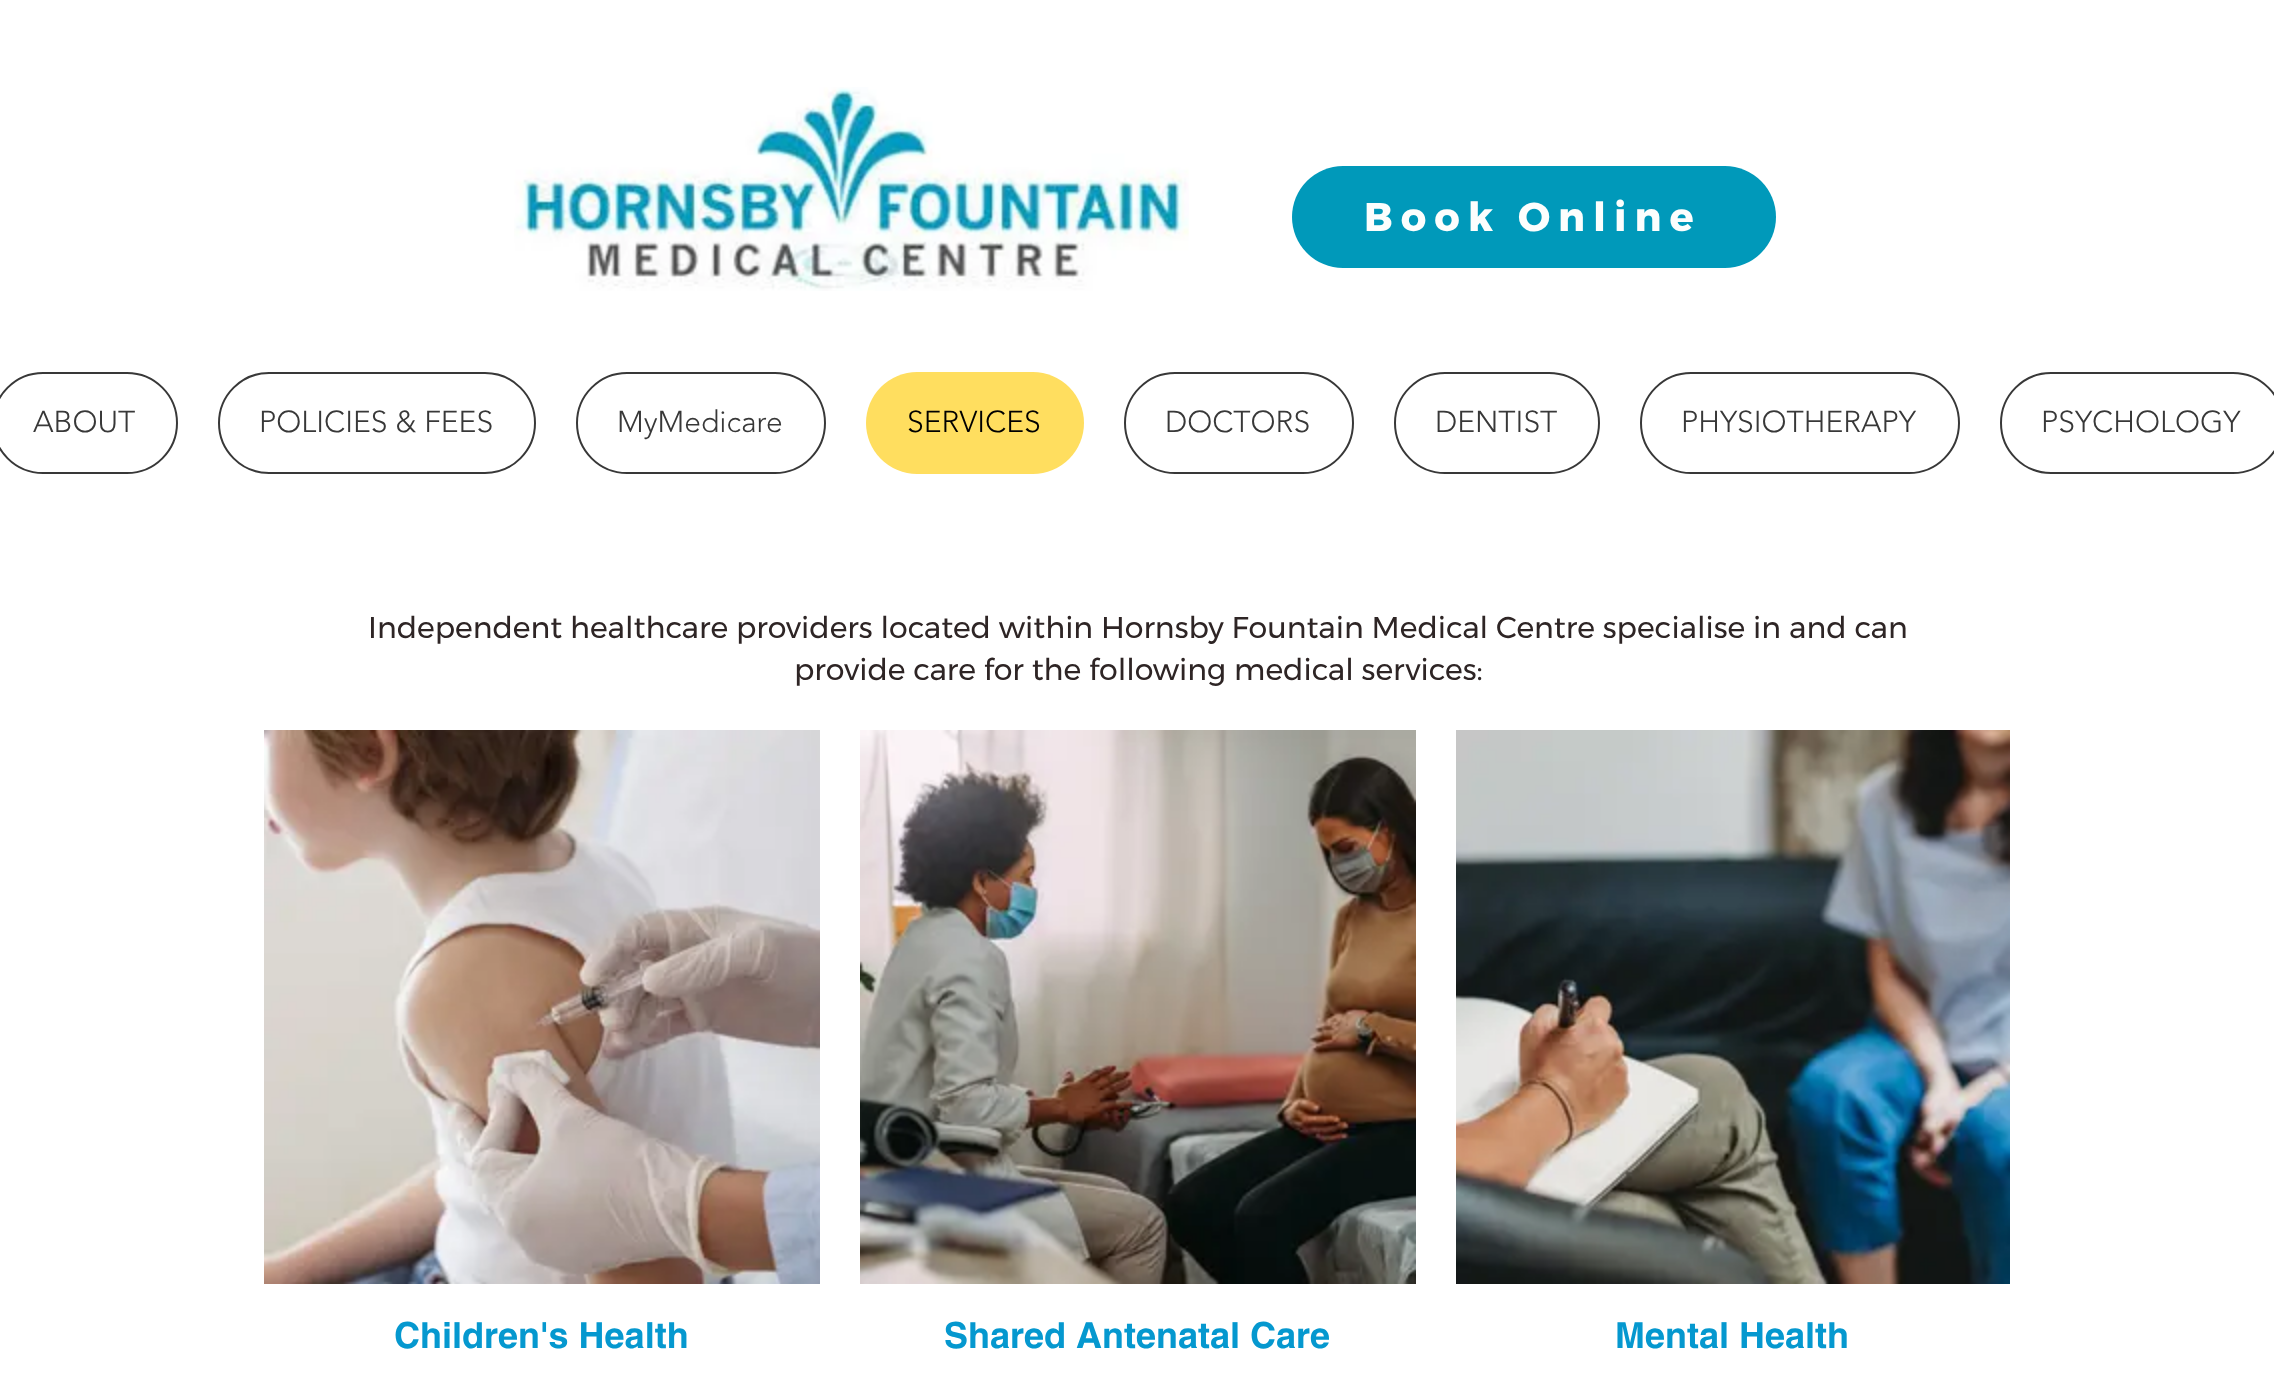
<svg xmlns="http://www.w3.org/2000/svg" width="2274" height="1393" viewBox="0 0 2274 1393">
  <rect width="100%" height="100%" fill="rgb(255,255,255)"/>
  <image x="514" y="87" width="675" height="204" href="pic1.png"/>
  <rect x="1292" y="166" width="484" height="102" rx="51" fill="rgb(0,153,186)"/>
  <text x="1364" y="231" font-family="Montserrat" font-size="40" font-weight="bold" letter-spacing="8" fill="rgb(252,254,253)">Book Online</text>
  <rect x="-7" y="373" width="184" height="100" rx="50" fill="none" stroke="rgb(56,56,56)" stroke-width="2"/>
  <text x="33" y="432" font-family="'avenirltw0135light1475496'" font-size="30" font-weight="300" fill="rgb(56,56,56)">ABOUT</text>
  <rect x="219" y="373" width="316" height="100" rx="50" fill="none" stroke="rgb(56,56,56)" stroke-width="2"/>
  <text x="259" y="432" font-family="'avenirltw0135light1475496'" font-size="30" font-weight="300" fill="rgb(56,56,56)">POLICIES &amp; FEES</text>
  <rect x="577" y="373" width="248" height="100" rx="50" fill="none" stroke="rgb(56,56,56)" stroke-width="2"/>
  <text x="617" y="432" font-family="'avenirltw0135light1475496'" font-size="30" font-weight="300" fill="rgb(56,56,56)">MyMedicare</text>
  <rect x="866" y="372" width="218" height="102" rx="51" fill="rgb(255,222,95)"/>
  <text x="907" y="432" font-family="'avenirltw0135light1475496'" font-size="30" font-weight="300" fill="rgb(0,0,0)">SERVICES</text>
  <rect x="1125" y="373" width="228" height="100" rx="50" fill="none" stroke="rgb(56,56,56)" stroke-width="2"/>
  <text x="1165" y="432" font-family="'avenirltw0135light1475496'" font-size="30" font-weight="300" fill="rgb(56,56,56)">DOCTORS</text>
  <rect x="1395" y="373" width="204" height="100" rx="50" fill="none" stroke="rgb(56,56,56)" stroke-width="2"/>
  <text x="1435" y="432" font-family="'avenirltw0135light1475496'" font-size="30" font-weight="300" fill="rgb(56,56,56)">DENTIST</text>
  <rect x="1641" y="373" width="318" height="100" rx="50" fill="none" stroke="rgb(56,56,56)" stroke-width="2"/>
  <text x="1681" y="432" font-family="'avenirltw0135light1475496'" font-size="30" font-weight="300" fill="rgb(56,56,56)">PHYSIOTHERAPY</text>
  <rect x="2001" y="373" width="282" height="100" rx="50" fill="none" stroke="rgb(56,56,56)" stroke-width="2"/>
  <text x="2041" y="432" font-family="'avenirltw0135light1475496'" font-size="30" font-weight="300" fill="rgb(56,56,56)">PSYCHOLOGY</text>
  <g font-family="Montserrat" font-size="30" fill="rgb(46,37,37)">
    <text x="368" y="638">Independent healthcare providers located within Hornsby Fountain Medical Centre specialise in and can</text>
    <text x="794" y="680">provide care for the following medical services:</text>
  </g>
  <image x="264" y="730" width="556" height="554" href="pic2.png"/>
  <text x="394" y="1348" font-family="helvetica" font-size="36" font-weight="bold" fill="rgb(5,152,207)">Children's Health</text>
  <image x="860" y="730" width="556" height="554" href="pic3.png"/>
  <text x="944" y="1348" font-family="helvetica" font-size="36" font-weight="bold" fill="rgb(5,152,207)">Shared Antenatal Care</text>
  <image x="1456" y="730" width="554" height="554" href="pic4.png"/>
  <text x="1615" y="1348" font-family="helvetica" font-size="36" font-weight="bold" fill="rgb(5,152,207)">Mental Health</text>
</svg>
